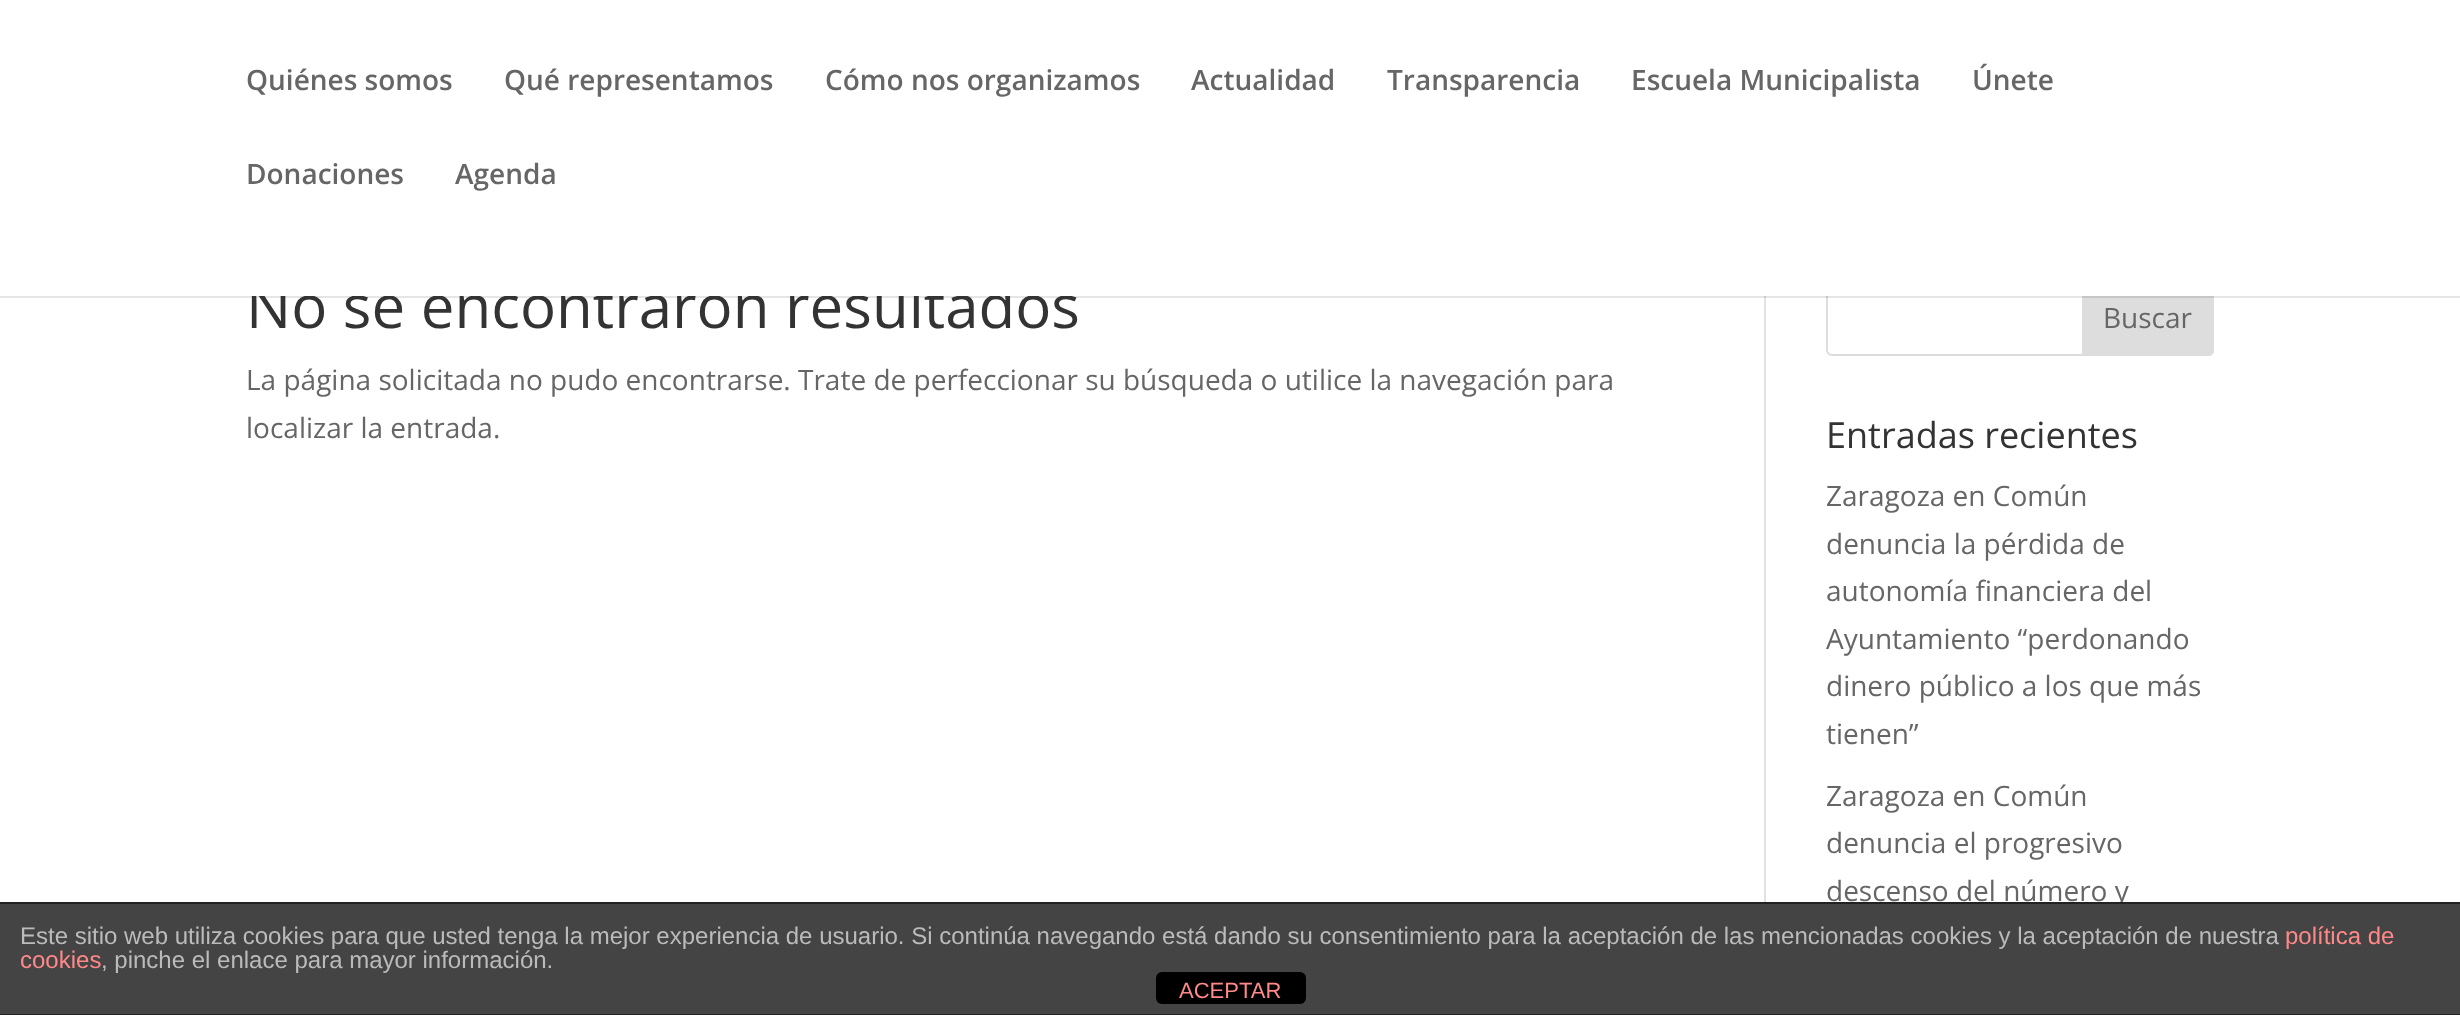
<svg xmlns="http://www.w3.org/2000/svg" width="2460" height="1015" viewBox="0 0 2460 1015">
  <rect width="100%" height="100%" fill="rgb(255,255,255)"/>
  <rect x="1827" y="277" width="386" height="78" rx="5" fill="none" stroke="rgb(221,221,221)" stroke-width="2"/>
  <path d="M2083 277H2208C2211 277 2213 279 2213 282V350C2213 353 2211 355 2208 355H2083Z" fill="rgb(221,221,221)" stroke="rgb(221,221,221)" stroke-width="2"/>
  <rect x="1764" y="296" width="2" height="606" fill="rgb(226,226,226)"/>
  <rect x="0" y="296" width="2460" height="2" fill="rgba(0,0,0,0.1)"/>
  <text x="246" y="328" font-family="Open Sans" font-size="60" fill="rgb(51,51,51)">No se encontraron resultados</text>
  <rect x="251" y="276" width="1963" height="20" fill="rgb(255,255,255)"/>
  <g font-family="Open Sans" font-size="28" font-weight="600" fill="rgb(102,102,102)">
    <text x="246" y="90">Quiénes somos</text>
    <text x="504" y="90">Qué representamos</text>
    <text x="825" y="90">Cómo nos organizamos</text>
    <text x="1191" y="90">Actualidad</text>
    <text x="1387" y="90">Transparencia</text>
    <text x="1631" y="90">Escuela Municipalista</text>
    <text x="1972" y="90">Únete</text>
    <text x="246" y="184">Donaciones</text>
    <text x="455" y="184">Agenda</text>
  </g>
  <g font-family="Open Sans" font-size="28" fill="rgb(102,102,102)">
    <text>
      <tspan x="246" y="390">La página solicitada no pudo encontrarse. Trate de perfeccionar su búsqueda o utilice la navegación para</tspan>
      <tspan x="246" y="438">localizar la entrada.</tspan>
    </text>
    <text x="2103" y="328">Buscar</text>
  </g>
  <text x="1826" y="448" font-family="Open Sans" font-size="36" fill="rgb(51,51,51)">Entradas recientes</text>
  <g font-family="Open Sans" font-size="28" fill="rgb(102,102,102)">
    <text>
      <tspan x="1826" y="506">Zaragoza en Común</tspan>
      <tspan x="1826" y="554">denuncia la pérdida de</tspan>
      <tspan x="1826" y="601">autonomía financiera del</tspan>
      <tspan x="1826" y="649">Ayuntamiento “perdonando</tspan>
      <tspan x="1826" y="696">dinero público a los que más</tspan>
      <tspan x="1826" y="744">tienen”</tspan>
    </text>
    <text>
      <tspan x="1826" y="806">Zaragoza en Común</tspan>
      <tspan x="1826" y="853">denuncia el progresivo</tspan>
      <tspan x="1826" y="901">descenso del número y</tspan>
    </text>
  </g>
  <rect x="0" y="904" width="2460" height="110" fill="rgb(68,68,68)"/>
  <rect x="0" y="902" width="2460" height="2" fill="rgb(34,34,34)"/>
  <rect x="0" y="1014" width="2460" height="1" fill="rgb(34,34,34)"/>
  <text x="20" y="944" font-family="Liberation Sans" font-size="24" fill="rgb(187,187,187)">Este sitio web utiliza cookies para que usted tenga la mejor experiencia de usuario. Si continúa navegando está dando su consentimiento para la aceptación de las mencionadas cookies y la aceptación de nuestra</text>
  <g font-family="Liberation Sans" font-size="24" fill="rgb(255,136,136)">
    <text x="2285" y="944">política de</text>
    <text x="20" y="968">cookies</text>
  </g>
  <text x="101" y="968" font-family="Liberation Sans" font-size="24" fill="rgb(187,187,187)">, pinche el enlace para mayor información.</text>
  <rect x="1156" y="972" width="150" height="32" rx="6" fill="rgb(0,0,0)"/>
  <text x="1179" y="998" font-family="Liberation Sans" font-size="22" fill="rgb(255,136,136)">ACEPTAR</text>
</svg>
